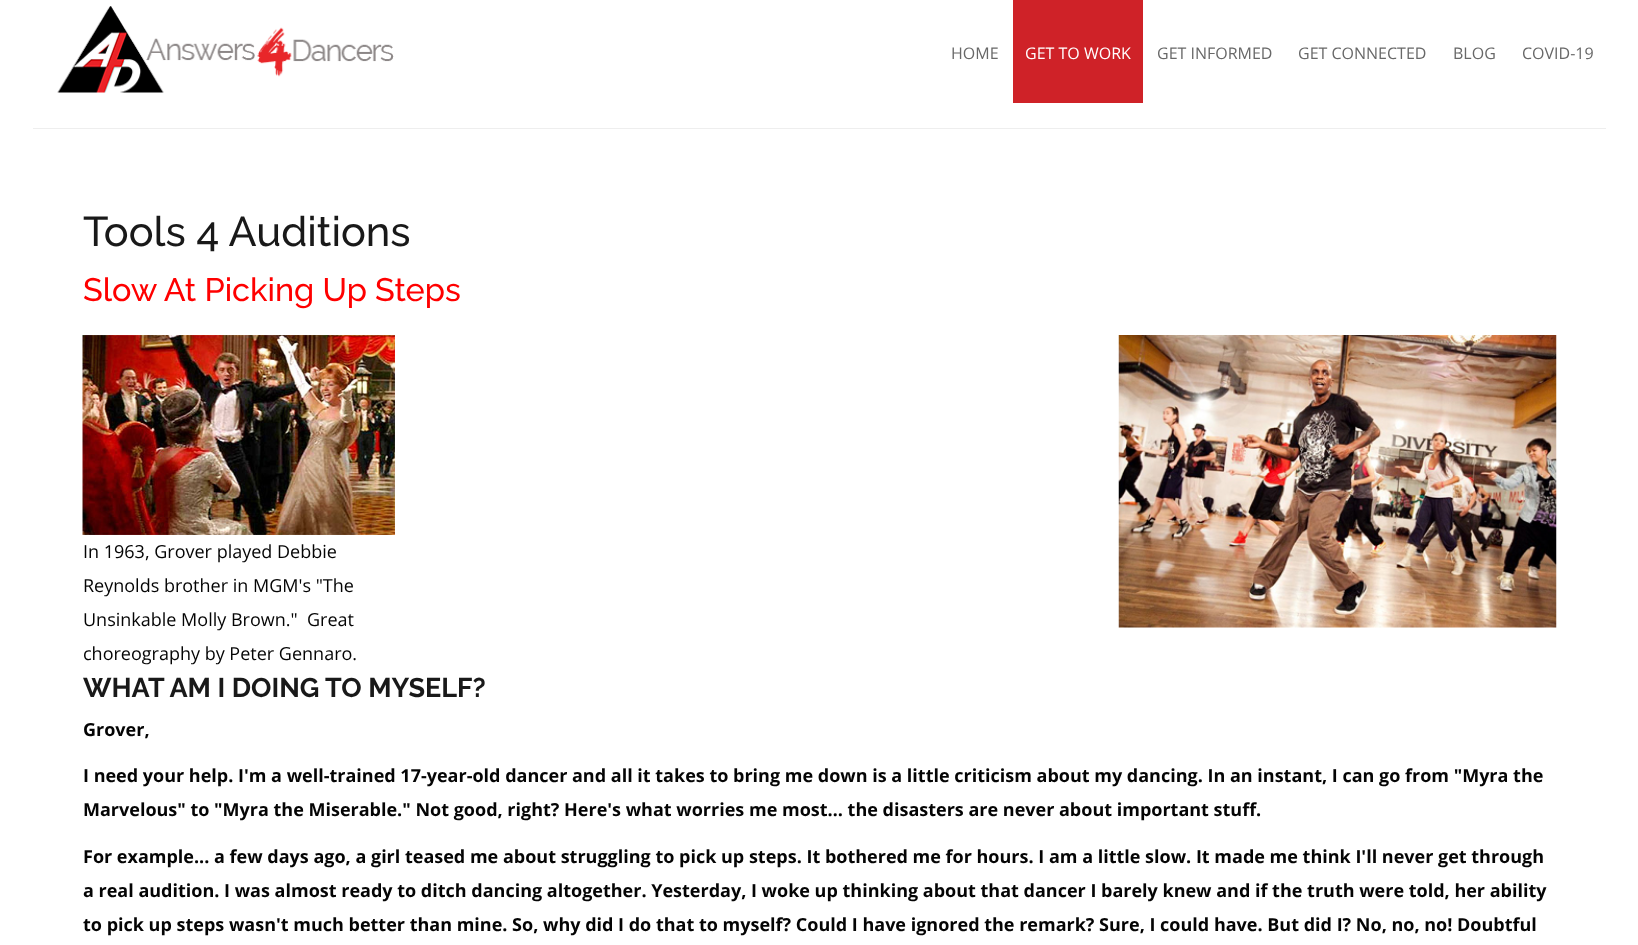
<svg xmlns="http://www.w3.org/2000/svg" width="1638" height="945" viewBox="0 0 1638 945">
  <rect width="100%" height="100%" fill="rgb(255,255,255)"/>
  <image x="57" y="6" width="337" height="87" href="pic1.png"/>
  <text x="951" y="59" font-family="Open Sans" font-size="16" fill="rgb(104,104,104)">HOME</text>
  <rect x="1013" y="0" width="130" height="103" fill="rgb(207,34,40)"/>
  <text x="1025" y="59" font-family="Open Sans" font-size="16" fill="rgb(255,255,255)">GET TO WORK</text>
  <g font-family="Open Sans" font-size="16" fill="rgb(104,104,104)">
    <text x="1157" y="59">GET INFORMED</text>
    <text x="1298" y="59">GET CONNECTED</text>
    <text x="1453" y="59">BLOG</text>
    <text x="1522" y="59">COVID-19</text>
  </g>
  <rect x="33" y="128" width="1573" height="1" fill="rgb(238,238,238)"/>
  <text x="83" y="246" font-family="Raleway" font-size="41.5" font-weight="500" fill="rgb(25,25,25)">Tools 4 Auditions</text>
  <text x="83" y="301" font-family="Raleway" font-size="32.4" font-weight="500" fill="rgb(255,0,0)">Slow At Picking Up Steps</text>
  <image x="82" y="335" width="313" height="200" href="pic2.png"/>
  <g font-family="Open Sans" font-size="18" fill="rgb(4,4,4)">
    <text xml:space="preserve"><tspan x="83" y="558">In 1963, Grover played Debbie</tspan><tspan x="83" y="592">Reynolds brother in MGM's "The</tspan><tspan x="83" y="626">Unsinkable Molly Brown."  Great</tspan><tspan x="83" y="660">choreography by Peter Gennaro.</tspan></text>
  </g>
  <image x="1118" y="335" width="439" height="293" href="pic3.png"/>
  <text x="83" y="697" font-family="Raleway" font-size="27" font-weight="bold" fill="rgb(25,25,25)">WHAT AM I DOING TO MYSELF?</text>
  <g font-family="Open Sans" font-size="18" font-weight="bold" fill="rgb(4,4,4)">
    <text x="83" y="736">Grover,</text>
    <text>
      <tspan x="83" y="782">I need your help. I'm a well-trained 17-year-old dancer and all it takes to bring me down is a little criticism about my dancing. In an instant, I can go from "Myra the</tspan>
      <tspan x="83" y="816">Marvelous" to "Myra the Miserable." Not good, right? Here's what worries me most… the disasters are never about important stuff.</tspan>
    </text>
    <text>
      <tspan x="83" y="863">For example... a few days ago, a girl teased me about struggling to pick up steps. It bothered me for hours. I am a little slow. It made me think I'll never get through</tspan>
      <tspan x="83" y="897">a real audition. I was almost ready to ditch dancing altogether. Yesterday, I woke up thinking about that dancer I barely knew and if the truth were told, her ability</tspan>
      <tspan x="83" y="931">to pick up steps wasn't much better than mine. So, why did I do that to myself? Could I have ignored the remark? Sure, I could have. But did I? No, no, no! Doubtful</tspan>
    </text>
  </g>
</svg>
